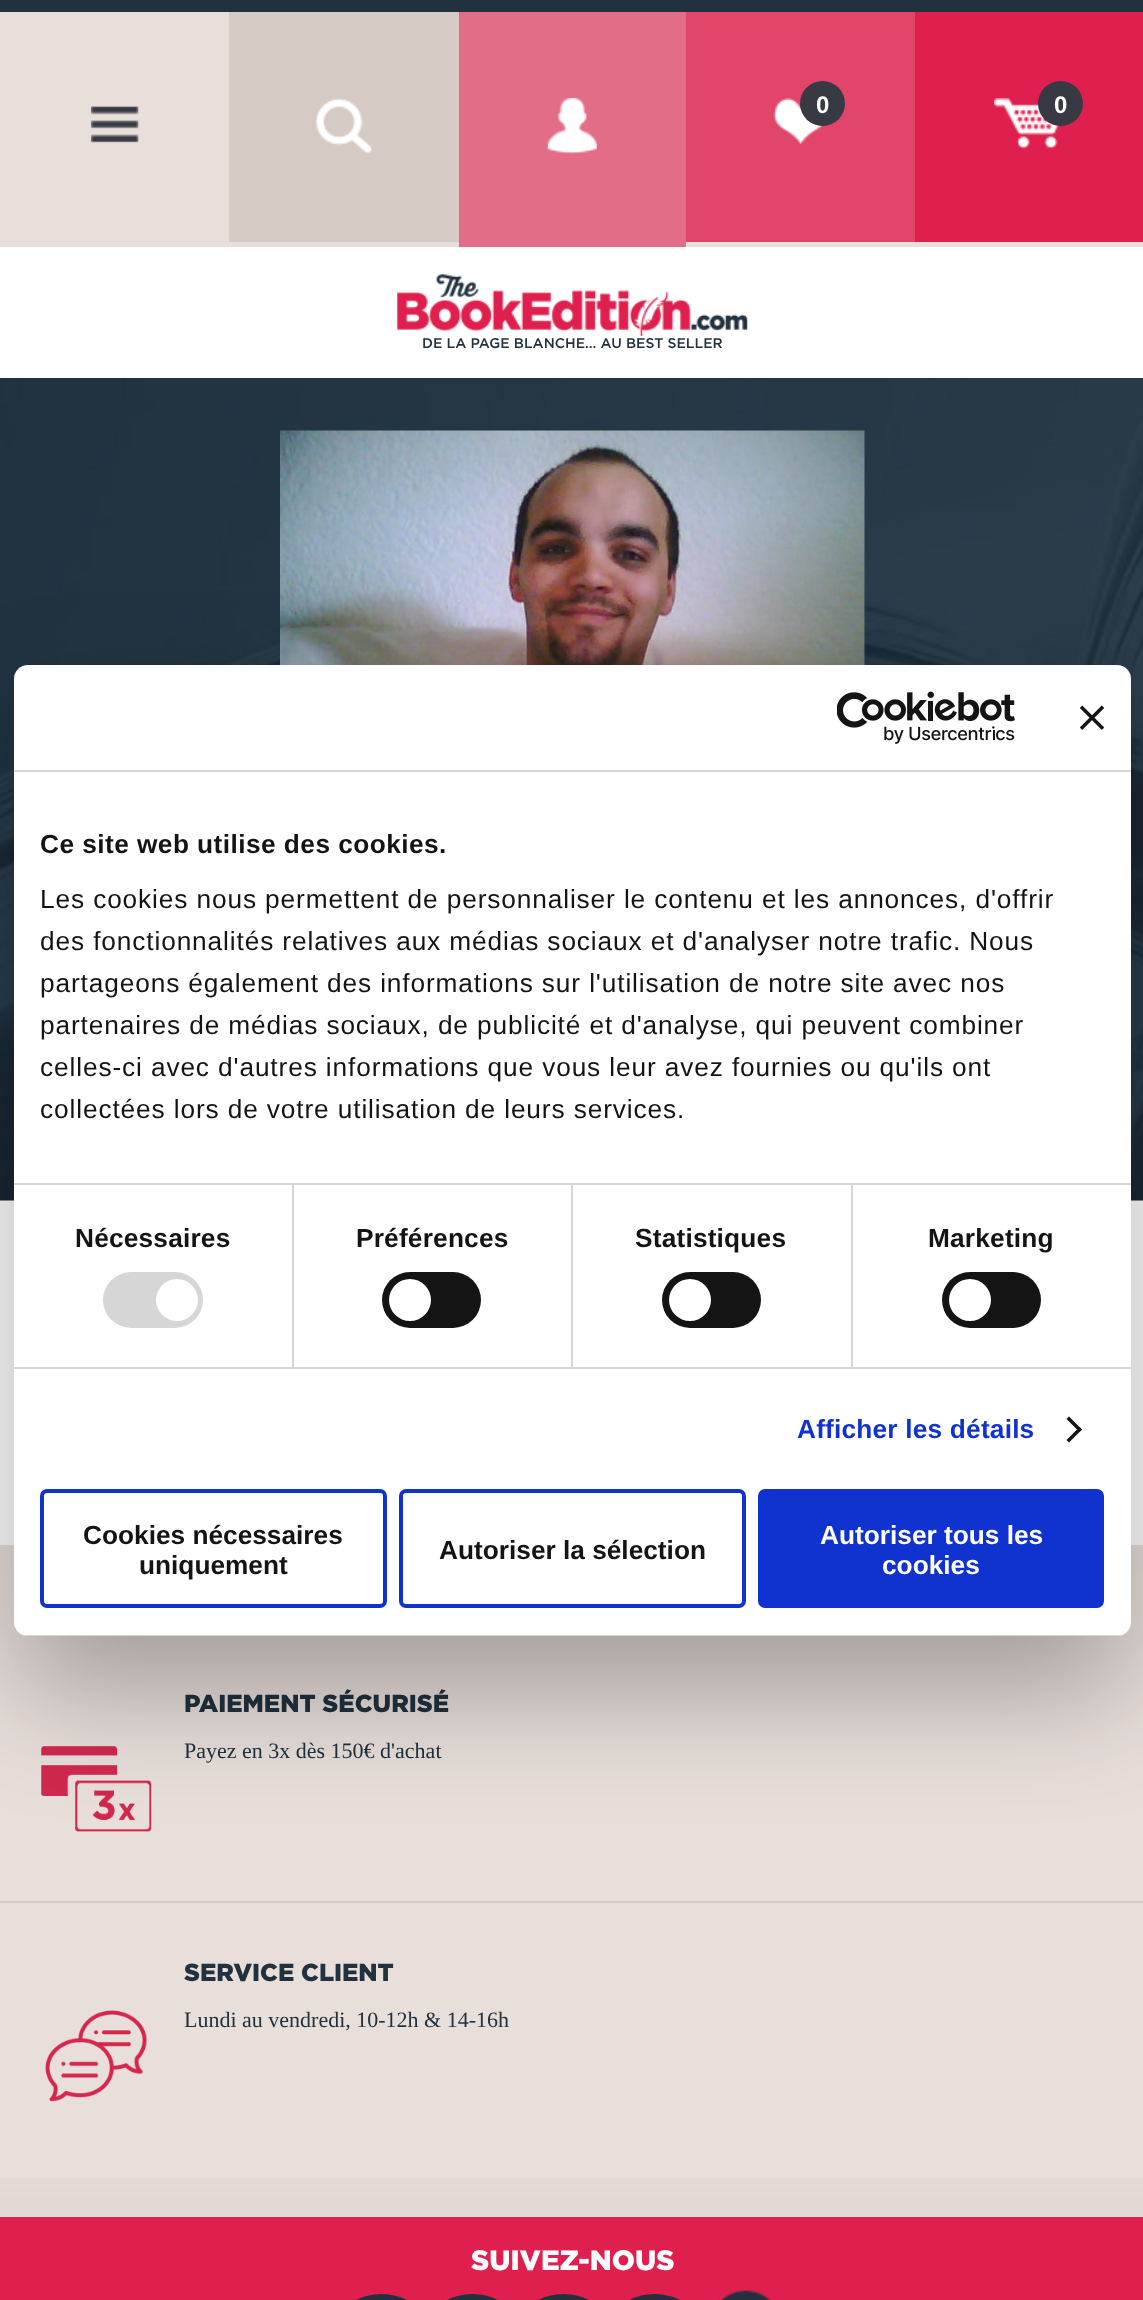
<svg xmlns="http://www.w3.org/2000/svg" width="1143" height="2300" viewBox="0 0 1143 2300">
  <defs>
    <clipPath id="clip1"><rect x="14" y="665" width="1117" height="971" rx="14"/></clipPath>
  </defs>
  <rect width="100%" height="100%" fill="rgb(255,255,255)"/>
  <rect x="0" y="0" width="1143" height="12" fill="rgb(33,49,62)"/>
  <rect x="0" y="12" width="1143" height="235" fill="rgb(232,223,219)"/>
  <image x="91" y="106" width="48" height="37" href="pic1.png"/>
  <rect x="229" y="12" width="230" height="230" fill="rgb(213,202,196)"/>
  <image x="315" y="98" width="57" height="56" href="pic2.png"/>
  <rect x="459" y="12" width="227" height="235" fill="rgb(227,108,134)"/>
  <image x="547" y="98" width="50" height="56" href="pic3.png"/>
  <rect x="686" y="12" width="229" height="230" fill="rgb(225,69,105)"/>
  <image x="773" y="98" width="50" height="47" href="pic4.png"/>
  <circle cx="822.5" cy="103.5" r="22.5" fill="rgb(55,57,67)"/>
  <text x="816" y="113" font-family="Liberation Sans" font-size="24" font-weight="bold" fill="rgb(255,255,255)">0</text>
  <rect x="915" y="12" width="228" height="230" fill="rgb(223,31,77)"/>
  <image x="994" y="98" width="66" height="51" href="pic5.png"/>
  <circle cx="1060.5" cy="103.5" r="22.5" fill="rgb(55,57,67)"/>
  <text x="1054" y="113" font-family="Liberation Sans" font-size="24" font-weight="bold" fill="rgb(255,255,255)">0</text>
  <image x="397" y="274" width="351" height="62" href="pic6.png"/>
  <text x="422" y="348" font-family="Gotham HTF" font-size="14" font-weight="500" fill="rgb(33,49,62)">DE LA PAGE BLANCHE... AU BEST SELLER</text>
  <image x="0" y="378" width="1143" height="823" href="pic7.png"/>
  <image x="280" y="430" width="585" height="235" href="pic8.png"/>
  <rect x="0" y="1545" width="1143" height="672" fill="rgb(232,223,219)"/>
  <image x="0" y="2178" width="1143" height="39" href="pic9.png"/>
  <rect x="0" y="1901" width="1143" height="2" fill="rgb(213,202,196)"/>
  <text x="184" y="1712" font-family="Gotham HTF" font-size="24.5" font-weight="900" fill="rgb(33,49,62)">PAIEMENT SÉCURISÉ</text>
  <image x="41" y="1746" width="111" height="86" href="pic10.png"/>
  <text x="184" y="1758" font-family="Liberation Serif" font-size="22" fill="rgb(33,49,62)">Payez en 3x dès 150€ d'achat</text>
  <text x="184" y="1981" font-family="Gotham HTF" font-size="24.5" font-weight="900" fill="rgb(33,49,62)">SERVICE CLIENT</text>
  <image x="45" y="2010" width="102" height="92" href="pic11.png"/>
  <text x="184" y="2027" font-family="Liberation Serif" font-size="22" fill="rgb(33,49,62)">Lundi au vendredi, 10-12h &amp; 14-16h</text>
  <rect x="0" y="2217" width="1143" height="83" fill="rgb(223,32,78)"/>
  <text x="471" y="2270" font-family="Gotham HTF" font-size="28" font-weight="900" fill="rgb(255,255,255)">SUIVEZ-NOUS</text>
  <rect x="345" y="2294" width="73" height="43" rx="36.5" fill="rgb(33,49,62)"/>
  <rect x="436" y="2294" width="73" height="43" rx="36.5" fill="rgb(33,49,62)"/>
  <rect x="527" y="2294" width="73" height="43" rx="36.5" fill="rgb(33,49,62)"/>
  <rect x="618" y="2294" width="73" height="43" rx="36.5" fill="rgb(33,49,62)"/>
  <image x="719" y="2290" width="53" height="10" href="pic12.png"/>
  <rect x="14" y="721" width="1117" height="971" rx="14" fill="rgba(0,0,0,0.3)" filter="blur(59.5px)"/>
  <rect x="14" y="665" width="1117" height="971" rx="14" fill="rgb(255,255,255)"/>
  <rect x="14" y="770" width="1117" height="2" fill="rgb(214,214,214)"/>
  <image x="837" y="691" width="178" height="53" href="pic13.png"/>
  <image x="1080" y="705" width="24" height="25" href="pic14.png"/>
  <rect x="14" y="1183" width="1117" height="2" fill="rgb(214,214,214)"/>
  <text x="40" y="853" font-family="Liberation Sans" font-size="26.25" font-weight="bold" letter-spacing="0.45" fill="rgb(20,20,20)">Ce site web utilise des cookies.</text>
  <g font-family="Liberation Sans" font-size="26.25" letter-spacing="0.88" fill="rgb(20,20,20)">
    <text>
      <tspan x="40" y="908">Les cookies nous permettent de personnaliser le contenu et les annonces, d'offrir</tspan>
      <tspan x="40" y="950">des fonctionnalités relatives aux médias sociaux et d'analyser notre trafic. Nous</tspan>
      <tspan x="40" y="992">partageons également des informations sur l'utilisation de notre site avec nos</tspan>
      <tspan x="40" y="1034">partenaires de médias sociaux, de publicité et d'analyse, qui peuvent combiner</tspan>
      <tspan x="40" y="1076">celles-ci avec d'autres informations que vous leur avez fournies ou qu'ils ont</tspan>
      <tspan x="40" y="1118">collectées lors de votre utilisation de leurs services.</tspan>
    </text>
  </g>
  <rect x="14" y="1367" width="1117" height="2" fill="rgb(214,214,214)"/>
  <rect x="292" y="1185" width="2" height="182" fill="rgb(214,214,214)"/>
  <text x="75" y="1247" font-family="Liberation Sans" font-size="26.25" font-weight="bold" letter-spacing="0.2" fill="rgb(20,20,20)">Nécessaires</text>
  <rect x="103" y="1272" width="100" height="56" rx="28" fill="rgb(214,214,214)"/>
  <circle cx="177" cy="1300" r="21" fill="rgb(255,255,255)"/>
  <rect x="571" y="1185" width="2" height="182" fill="rgb(214,214,214)"/>
  <text x="356" y="1247" font-family="Liberation Sans" font-size="26.25" font-weight="bold" letter-spacing="0.2" fill="rgb(20,20,20)">Préférences</text>
  <rect x="382" y="1272" width="99" height="56" rx="28" fill="rgb(20,20,20)"/>
  <circle cx="410" cy="1300" r="21" fill="rgb(255,255,255)"/>
  <rect x="851" y="1185" width="2" height="182" fill="rgb(214,214,214)"/>
  <text x="635" y="1247" font-family="Liberation Sans" font-size="26.25" font-weight="bold" letter-spacing="0.2" fill="rgb(20,20,20)">Statistiques</text>
  <rect x="662" y="1272" width="99" height="56" rx="28" fill="rgb(20,20,20)"/>
  <circle cx="690" cy="1300" r="21" fill="rgb(255,255,255)"/>
  <text x="928" y="1247" font-family="Liberation Sans" font-size="26.25" font-weight="bold" letter-spacing="0.2" fill="rgb(20,20,20)">Marketing</text>
  <rect x="942" y="1272" width="99" height="56" rx="28" fill="rgb(20,20,20)"/>
  <circle cx="970" cy="1300" r="21" fill="rgb(255,255,255)"/>
  <text x="797" y="1438" font-family="Liberation Sans" font-size="26.25" font-weight="bold" letter-spacing="0.2" fill="rgb(16,50,207)">Afficher les détails</text>
  <path d="M1069 1416.5L1082 1429.5L1079.5 1432L1066.5 1419Z" fill="rgb(20,20,20)"/>
  <path d="M1079.5 1427L1082 1429.5L1069 1442.5L1066.5 1440Z" fill="rgb(20,20,20)"/>
  <g clip-path="url(#clip1)">
    <rect x="23" y="1635" width="1099" height="1" fill="rgb(214,214,214)"/>
  </g>
  <rect x="42" y="1491" width="343" height="115" rx="5" fill="none" stroke="rgb(16,50,207)" stroke-width="4"/>
  <g font-family="Liberation Sans" font-size="26.25" font-weight="bold" fill="rgb(20,20,20)">
    <text x="83" y="1544">Cookies nécessaires</text>
    <text x="139" y="1574">uniquement</text>
  </g>
  <rect x="401" y="1491" width="343" height="115" rx="5" fill="none" stroke="rgb(16,50,207)" stroke-width="4"/>
  <text x="439" y="1559" font-family="Liberation Sans" font-size="26.25" font-weight="bold" fill="rgb(20,20,20)">Autoriser la sélection</text>
  <rect x="760" y="1491" width="342" height="115" rx="5" fill="rgb(16,50,207)" stroke="rgb(16,50,207)" stroke-width="4"/>
  <g font-family="Liberation Sans" font-size="26.25" font-weight="bold" fill="rgb(255,255,255)">
    <text x="820" y="1544">Autoriser tous les</text>
    <text x="882" y="1574">cookies</text>
  </g>
</svg>
